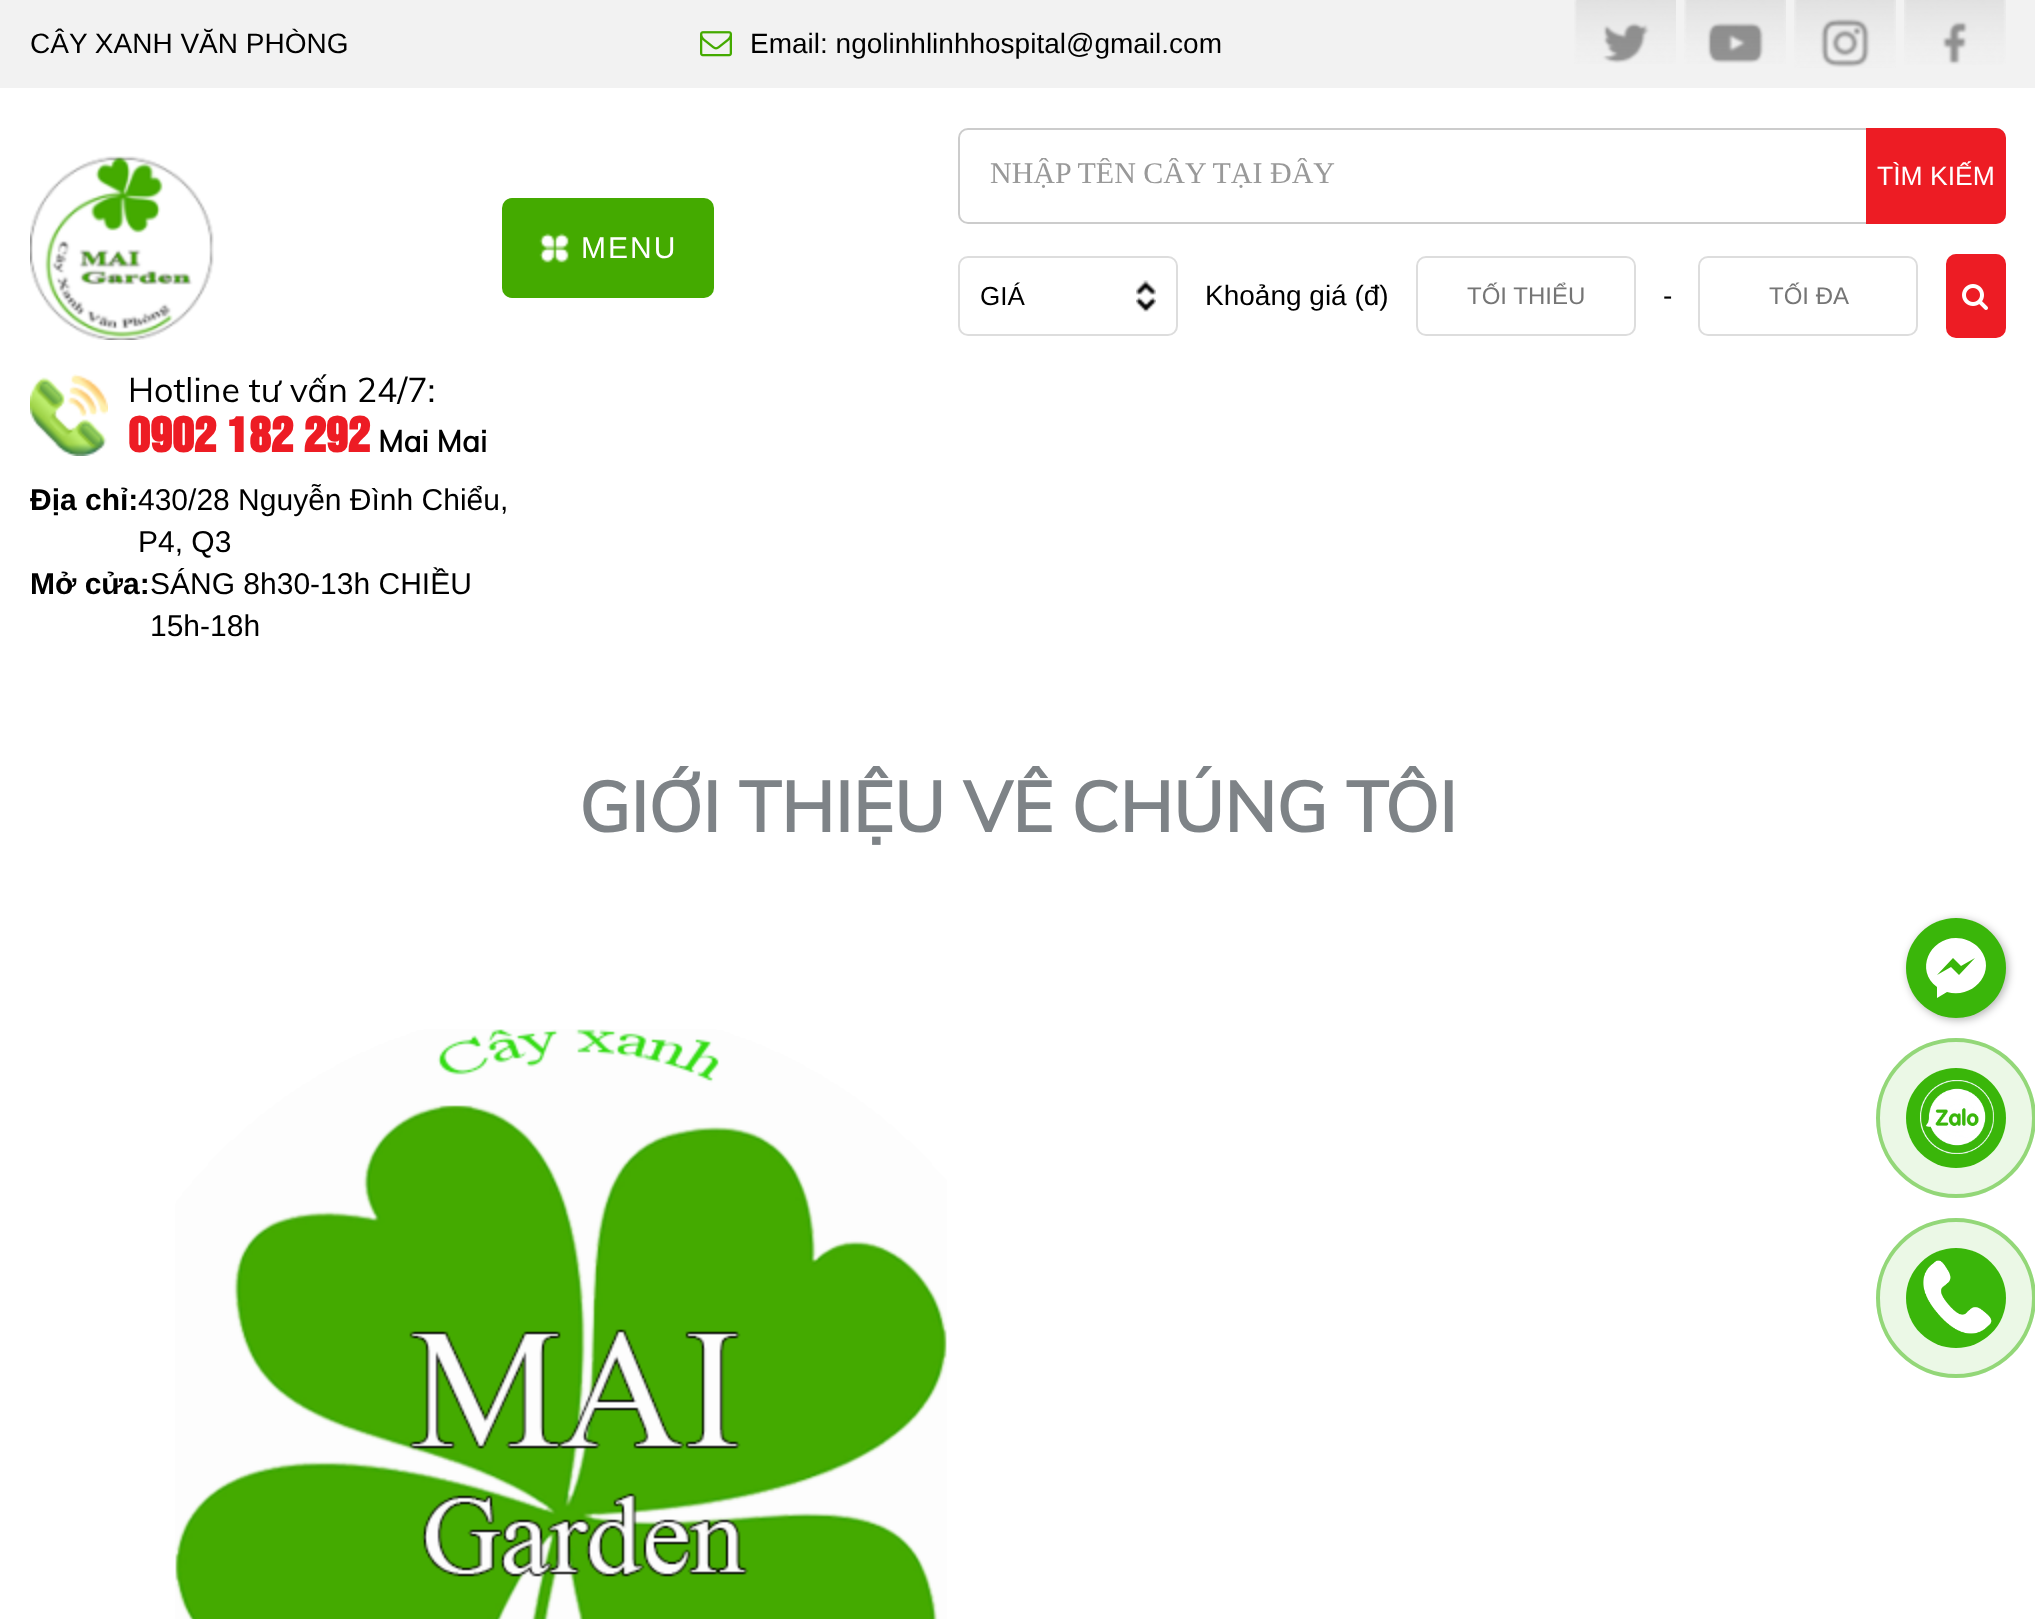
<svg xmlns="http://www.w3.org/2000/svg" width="2035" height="1619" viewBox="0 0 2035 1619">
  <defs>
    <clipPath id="clip1"><rect x="990" y="158" width="1010" height="34"/></clipPath>
    <clipPath id="clip2"><rect x="30" y="766" width="1976" height="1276"/></clipPath>
  </defs>
  <rect width="100%" height="100%" fill="rgb(255,255,255)"/>
  <rect x="0" y="0" width="2035" height="88" fill="rgb(242,242,242)"/>
  <text x="30" y="53" font-family="Liberation Sans" font-size="28" fill="rgb(0,0,0)">CÂY XANH VĂN PHÒNG</text>
  <image x="700" y="31" width="32" height="26" href="pic1.png"/>
  <text x="750" y="53" font-family="Liberation Sans" font-size="28" fill="rgb(0,0,0)">Email: ngolinhlinhhospital@gmail.com</text>
  <image x="1574" y="0" width="102" height="64" href="pic2.png"/>
  <image x="1684" y="0" width="102" height="64" href="pic3.png"/>
  <image x="1794" y="0" width="102" height="68" href="pic4.png"/>
  <image x="1904" y="0" width="102" height="65" href="pic5.png"/>
  <image x="30" y="156" width="184" height="184" href="pic6.png"/>
  <rect x="502" y="198" width="212" height="100" rx="10" fill="rgb(68,170,0)"/>
  <image x="539" y="233" width="30" height="30" href="pic7.png"/>
  <text x="581" y="258" font-family="Liberation Sans" font-size="30" letter-spacing="2" fill="rgb(255,255,255)">MENU</text>
  <rect x="959" y="129" width="1046" height="94" rx="9" fill="none" stroke="rgb(204,204,204)" stroke-width="2"/>
  <g clip-path="url(#clip1)">
    <text x="990" y="183" font-family="Liberation Serif" font-size="30" fill="rgb(153,153,153)">NHẬP TÊN CÂY TẠI ĐÂY</text>
  </g>
  <path d="M1867 129H1996C2001 129 2005 133 2005 138V214C2005 219 2001 223 1996 223H1867Z" fill="rgb(237,28,36)" stroke="rgb(237,28,36)" stroke-width="2"/>
  <text x="1877" y="185" font-family="Liberation Sans" font-size="26.5" fill="rgb(255,255,255)">TÌM KIẾM</text>
  <image x="1136" y="280" width="20" height="32" href="pic8.png"/>
  <rect x="959" y="257" width="218" height="78" rx="9" fill="none" stroke="rgb(221,221,221)" stroke-width="2"/>
  <text x="980" y="305" font-family="Liberation Sans" font-size="26" fill="rgb(0,0,0)">GIÁ</text>
  <text x="1205" y="305" font-family="Liberation Sans" font-size="28" fill="rgb(0,0,0)">Khoảng giá (đ)</text>
  <rect x="1417" y="257" width="218" height="78" rx="9" fill="none" stroke="rgb(221,221,221)" stroke-width="2"/>
  <text x="1467" y="304" font-family="Liberation Sans" font-size="24" fill="rgb(117,117,117)">TỐI THIỂU</text>
  <text x="1663" y="305" font-family="Liberation Sans" font-size="28" fill="rgb(0,0,0)">-</text>
  <rect x="1699" y="257" width="218" height="78" rx="9" fill="none" stroke="rgb(221,221,221)" stroke-width="2"/>
  <text x="1769" y="304" font-family="Liberation Sans" font-size="24" fill="rgb(117,117,117)">TỐI ĐA</text>
  <rect x="1947" y="255" width="58" height="82" rx="9" fill="rgb(237,28,36)" stroke="rgb(237,28,36)" stroke-width="2"/>
  <image x="1962" y="284" width="26" height="26" href="pic9.png"/>
  <image x="30" y="374" width="78" height="82" href="pic10.png"/>
  <text x="128" y="402" font-family="Muli" font-size="34" fill="rgb(0,0,0)">Hotline tư vấn 24/7:</text>
  <text x="128" y="452" font-family="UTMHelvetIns" font-size="44" font-weight="bold" fill="rgb(237,28,36)">0902 182 292</text>
  <text x="378" y="452" font-family="Muli" font-size="30" font-weight="bold" fill="rgb(0,0,0)">Mai Mai</text>
  <text x="30" y="510" font-family="Liberation Sans" font-size="30" font-weight="bold" fill="rgb(0,0,0)">Địa chỉ:</text>
  <g font-family="Liberation Sans" font-size="30" fill="rgb(0,0,0)">
    <text>
      <tspan x="138" y="510">430/28 Nguyễn Đình Chiểu,</tspan>
      <tspan x="138" y="552">P4, Q3</tspan>
    </text>
  </g>
  <text x="30" y="594" font-family="Liberation Sans" font-size="30" font-weight="bold" fill="rgb(0,0,0)">Mở cửa:</text>
  <g font-family="Liberation Sans" font-size="30" fill="rgb(0,0,0)">
    <text>
      <tspan x="150" y="594">SÁNG 8h30-13h CHIỀU</tspan>
      <tspan x="150" y="636">15h-18h</tspan>
    </text>
  </g>
  <g clip-path="url(#clip2)">
    <text x="579" y="832" font-family="Muli" font-size="70" font-weight="bold" fill="rgb(126,131,135)">GIỚI THIỆU VỀ CHÚNG TÔI</text>
  </g>
  <image x="175" y="1029" width="772" height="590" href="pic11.png"/>
  <rect x="1908" y="920" width="100" height="100" rx="50" fill="rgba(0,0,0,0.3)" filter="blur(4px)"/>
  <circle cx="1956" cy="968" r="50" fill="rgb(58,182,10)"/>
  <path d="M1956 938C1929 938 1915 971 1937 987V998L1947 992C1975 1000 2000 968 1977 946C1971 941 1964 938 1956 938ZM1959 975L1951 967L1937 975L1953 958L1961 966L1975 958Z" fill="rgb(255,255,255)"/>
  <circle cx="1956" cy="1118" r="78" fill="none" stroke="rgb(157,219,133)" stroke-width="4"/>
  <circle cx="1956" cy="1118" r="80" fill="rgba(58,182,10,0.1)"/>
  <circle cx="1956" cy="1118" r="50" fill="rgb(58,182,10)"/>
  <image x="1920" y="1080" width="74" height="74" href="pic12.png"/>
  <circle cx="1956" cy="1298" r="78" fill="none" stroke="rgb(157,219,133)" stroke-width="4"/>
  <circle cx="1956" cy="1298" r="80" fill="rgba(58,182,10,0.1)"/>
  <circle cx="1956" cy="1298" r="50" fill="rgb(58,182,10)"/>
  <image x="1923" y="1260" width="69" height="74" href="pic13.png"/>
</svg>
